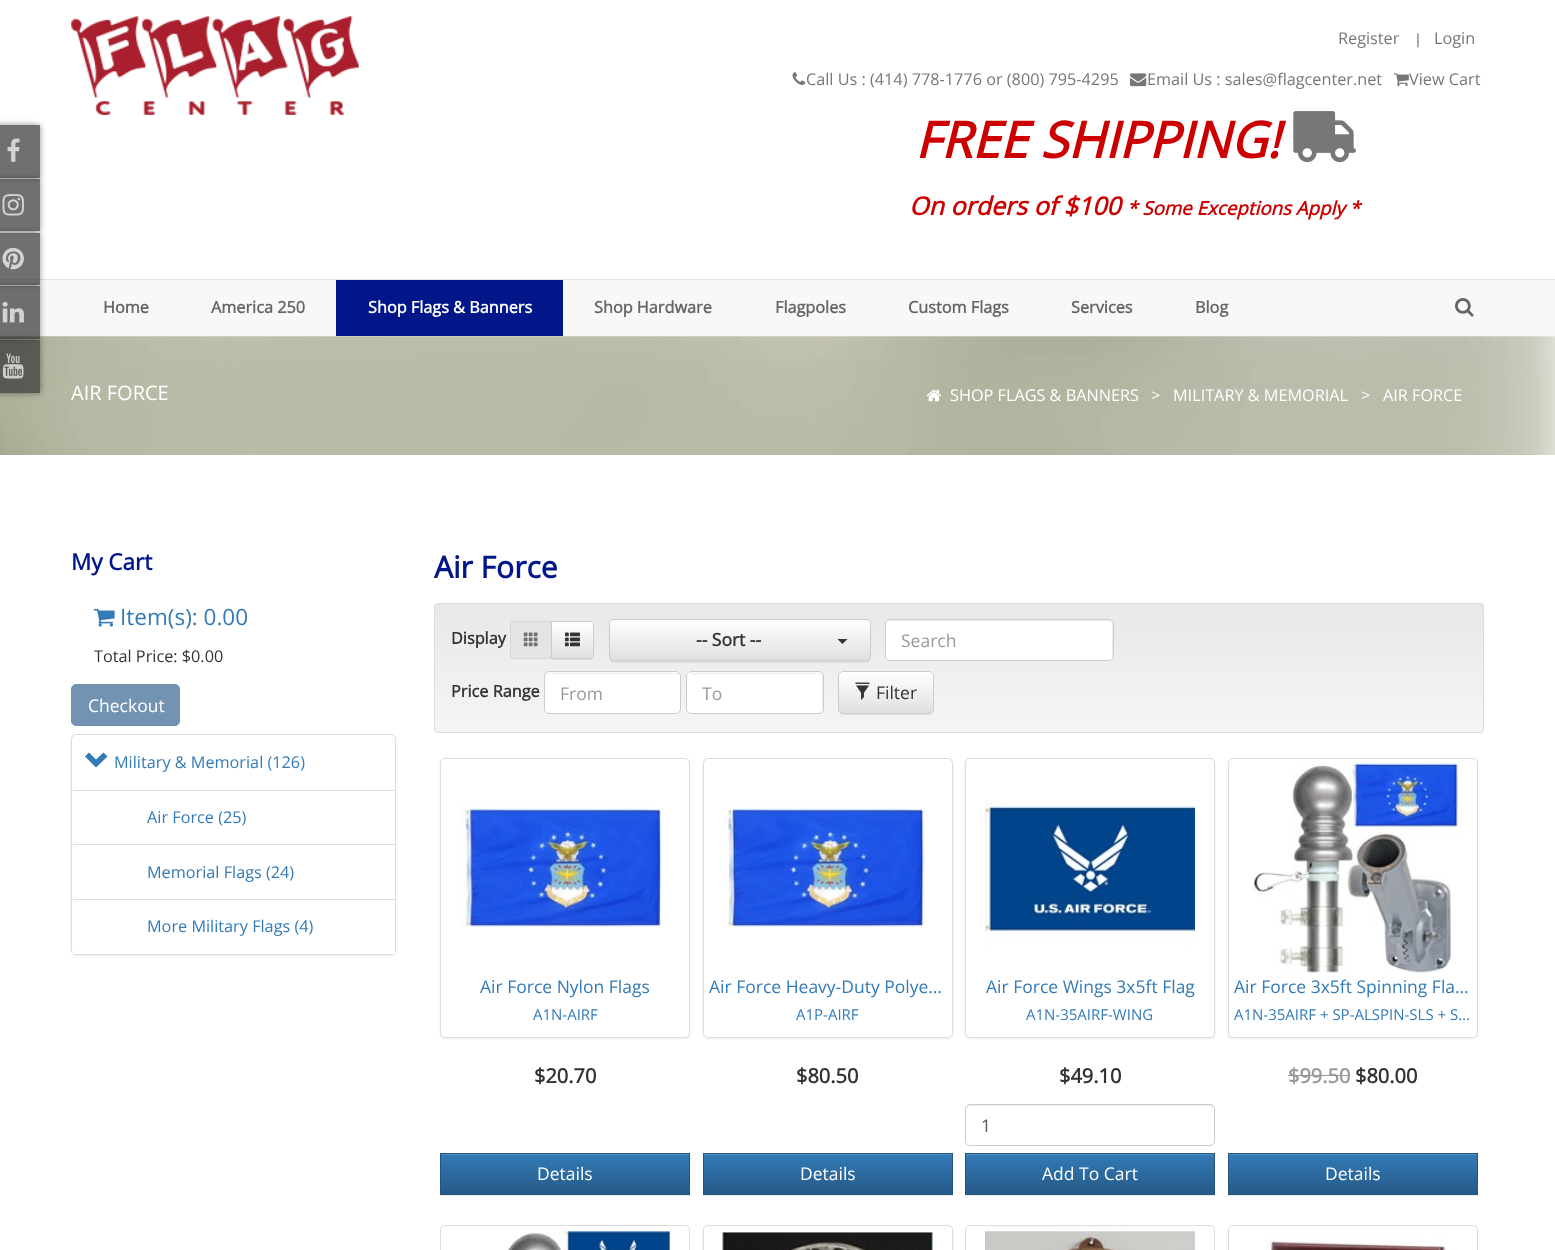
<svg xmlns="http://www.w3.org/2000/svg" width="1555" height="1250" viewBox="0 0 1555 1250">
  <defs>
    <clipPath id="clip1"><path d="M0 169H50V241H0ZM-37 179H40V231H-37Z" clip-rule="evenodd"/></clipPath>
    <clipPath id="clip2"><path d="M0 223H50V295H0ZM-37 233H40V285H-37Z" clip-rule="evenodd"/></clipPath>
    <clipPath id="clip3"><path d="M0 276H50V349H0ZM-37 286H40V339H-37Z" clip-rule="evenodd"/></clipPath>
    <clipPath id="clip4"><path d="M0 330H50V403H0ZM-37 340H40V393H-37Z" clip-rule="evenodd"/></clipPath>
    <clipPath id="clip5"><rect x="434" y="603" width="1050" height="130" rx="4"/></clipPath>
    <linearGradient id="g1" gradientUnits="userSpaceOnUse" x1="959" y1="604" x2="959" y2="731"><stop offset="0" stop-color="rgb(232,232,232)"/><stop offset="1" stop-color="rgb(245,245,245)"/></linearGradient>
    <clipPath id="clip6"><path d="M551 621H590C592 621 594 623 594 625V655C594 657 592 659 590 659H551Z"/></clipPath>
    <linearGradient id="g2" gradientUnits="userSpaceOnUse" x1="573" y1="623" x2="573" y2="658"><stop offset="0" stop-color="rgb(255,255,255)"/><stop offset="1" stop-color="rgb(224,224,224)"/></linearGradient>
    <clipPath id="clip7"><rect x="609" y="619" width="262" height="42" rx="5"/></clipPath>
    <linearGradient id="g3" gradientUnits="userSpaceOnUse" x1="740" y1="620" x2="740" y2="660"><stop offset="0" stop-color="rgb(255,255,255)"/><stop offset="1" stop-color="rgb(224,224,224)"/></linearGradient>
    <clipPath id="clip8"><rect x="838" y="671" width="96" height="43" rx="5"/></clipPath>
    <linearGradient id="g4" gradientUnits="userSpaceOnUse" x1="886" y1="673" x2="886" y2="713"><stop offset="0" stop-color="rgb(255,255,255)"/><stop offset="1" stop-color="rgb(224,224,224)"/></linearGradient>
    <linearGradient id="g5" gradientUnits="userSpaceOnUse" x1="565" y1="1154" x2="565" y2="1194"><stop offset="0" stop-color="rgb(51,122,183)"/><stop offset="1" stop-color="rgb(38,90,136)"/></linearGradient>
    <linearGradient id="g6" gradientUnits="userSpaceOnUse" x1="828" y1="1154" x2="828" y2="1194"><stop offset="0" stop-color="rgb(51,122,183)"/><stop offset="1" stop-color="rgb(38,90,136)"/></linearGradient>
    <linearGradient id="g7" gradientUnits="userSpaceOnUse" x1="1090" y1="1154" x2="1090" y2="1194"><stop offset="0" stop-color="rgb(51,122,183)"/><stop offset="1" stop-color="rgb(38,90,136)"/></linearGradient>
    <linearGradient id="g8" gradientUnits="userSpaceOnUse" x1="1353" y1="1154" x2="1353" y2="1194"><stop offset="0" stop-color="rgb(51,122,183)"/><stop offset="1" stop-color="rgb(38,90,136)"/></linearGradient>
  </defs>
  <rect width="100%" height="100%" fill="rgb(255,255,255)"/>
  <rect x="-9" y="125" width="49" height="53" fill="rgba(77,77,77,0.6)" filter="blur(3px)"/>
  <rect x="0" y="125" width="40" height="53" fill="rgb(112,112,112)"/>
  <image x="7" y="138" width="13" height="24" href="pic1.png"/>
  <g clip-path="url(#clip1)">
    <rect x="-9" y="179" width="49" height="52" fill="rgba(0,0,0,0.42)" filter="blur(3px)"/>
  </g>
  <rect x="0" y="179" width="40" height="52" fill="rgba(51,51,51,0.7)"/>
  <image x="2" y="194" width="22" height="22" href="pic2.png"/>
  <rect x="0" y="280" width="1555" height="56" fill="rgb(248,248,248)"/>
  <rect x="0" y="279" width="1555" height="1" fill="rgb(227,227,227)"/>
  <g clip-path="url(#clip2)">
    <rect x="-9" y="233" width="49" height="52" fill="rgba(0,0,0,0.42)" filter="blur(3px)"/>
  </g>
  <rect x="0" y="233" width="40" height="52" fill="rgba(51,51,51,0.7)"/>
  <image x="2" y="247" width="22" height="23" href="pic3.png"/>
  <image x="0" y="336" width="1555" height="119" href="pic12.png"/>
  <g clip-path="url(#clip3)">
    <rect x="-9" y="286" width="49" height="53" fill="rgba(0,0,0,0.42)" filter="blur(3px)"/>
  </g>
  <rect x="0" y="286" width="40" height="53" fill="rgba(51,51,51,0.7)"/>
  <image x="2" y="301" width="22" height="22" href="pic4.png"/>
  <g clip-path="url(#clip4)">
    <rect x="-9" y="340" width="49" height="53" fill="rgba(0,0,0,0.42)" filter="blur(3px)"/>
  </g>
  <rect x="0" y="340" width="40" height="53" fill="rgba(51,51,51,0.7)"/>
  <image x="2" y="353" width="22" height="26" href="pic5.png"/>
  <image x="71" y="16" width="288" height="99" href="pic6.png"/>
  <text x="1338" y="44" font-family="Open Sans" font-size="16.25" fill="rgb(119,119,119)">Register</text>
  <text x="1416" y="44" font-family="Liberation Sans" font-size="15" fill="rgb(119,119,119)">|</text>
  <text x="1434" y="44" font-family="Open Sans" font-size="16.25" fill="rgb(119,119,119)">Login</text>
  <image x="792" y="72" width="14" height="13" href="pic7.png"/>
  <text x="806" y="85" font-family="Open Sans" font-size="16.25" fill="rgb(119,119,119)">Call Us : (414) 778-1776 or (800) 795-4295</text>
  <image x="1130" y="73" width="17" height="14" href="pic8.png"/>
  <text x="1147" y="85" font-family="Open Sans" font-size="16.25" fill="rgb(119,119,119)">Email Us : sales@flagcenter.net</text>
  <image x="1393" y="73" width="16" height="14" href="pic9.png"/>
  <text x="1409" y="85" font-family="Open Sans" font-size="16.25" fill="rgb(119,119,119)">View Cart</text>
  <text x="915" y="158" font-family="Open Sans" font-size="50" font-weight="bold" font-style="italic" fill="rgb(204,0,0)">FREE SHIPPING!</text>
  <image x="1293" y="111" width="63" height="52" href="pic10.png"/>
  <text x="909" y="215" font-family="Open Sans" font-size="25" font-weight="bold" font-style="italic" fill="rgb(204,0,0)">On orders of $100</text>
  <text x="1127" y="215" font-family="Open Sans" font-size="18.75" font-weight="bold" font-style="italic" fill="rgb(204,0,0)">* Some Exceptions Apply *</text>
  <g font-family="Open Sans" font-size="16.25" font-weight="bold" fill="rgb(102,102,102)">
    <text x="103" y="313">Home</text>
    <text x="211" y="313">America 250</text>
  </g>
  <rect x="336" y="280" width="227" height="56" fill="rgb(0,22,137)"/>
  <text x="368" y="313" font-family="Open Sans" font-size="16.25" font-weight="bold" fill="rgb(255,255,255)">Shop Flags &amp; Banners</text>
  <g font-family="Open Sans" font-size="16.25" font-weight="bold" fill="rgb(102,102,102)">
    <text x="594" y="313">Shop Hardware</text>
    <text x="775" y="313">Flagpoles</text>
    <text x="908" y="313">Custom Flags</text>
    <text x="1071" y="313">Services</text>
    <text x="1195" y="313">Blog</text>
  </g>
  <image x="1455" y="298" width="19" height="19" href="pic11.png"/>
  <text x="71" y="400" font-family="Open Sans" font-size="20" fill="rgb(255,255,255)">AIR FORCE</text>
  <image x="926" y="389" width="15" height="13" href="pic13.png"/>
  <g font-family="Open Sans" font-size="16.25" fill="rgb(255,255,255)">
    <text x="950" y="401">SHOP FLAGS &amp; BANNERS</text>
    <text x="1151" y="401">&gt;</text>
    <text x="1173" y="401">MILITARY &amp; MEMORIAL</text>
    <text x="1361" y="401">&gt;</text>
    <text x="1383" y="401">AIR FORCE</text>
  </g>
  <text x="71" y="570" font-family="Open Sans" font-size="22.5" font-weight="bold" fill="rgb(0,22,137)">My Cart</text>
  <image x="93" y="608" width="22" height="19" href="pic14.png"/>
  <text x="120" y="625" font-family="Open Sans" font-size="22.5" fill="rgb(51,122,183)">Item(s): 0.00</text>
  <text x="94" y="662" font-family="Open Sans" font-size="16.25" fill="rgb(51,51,51)">Total Price: $0.00</text>
  <rect x="71.5" y="684.5" width="108" height="41" rx="4.5" fill="rgb(114,148,178)" stroke="rgb(113,145,172)"/>
  <text x="88" y="712" font-family="Open Sans" font-size="17.5" fill="rgb(255,255,255)">Checkout</text>
  <rect x="71" y="735" width="325" height="221" rx="5" fill="rgba(0,0,0,0.07)" filter="blur(1px)"/>
  <rect x="71.5" y="734.5" width="324" height="220" rx="4.5" fill="rgb(255,255,255)" stroke="rgb(221,221,221)"/>
  <path d="M107.5 756.5L96 767.5L85 756.5L89 752.5L96 759.5L103.5 752.5Z" fill="rgb(51,122,183)"/>
  <text x="114" y="768" font-family="Open Sans" font-size="16.25" fill="rgb(51,122,183)">Military &amp; Memorial (126)</text>
  <rect x="73" y="790" width="322" height="1" fill="rgb(221,221,221)"/>
  <text x="147" y="823" font-family="Open Sans" font-size="16.25" fill="rgb(51,122,183)">Air Force (25)</text>
  <rect x="73" y="844" width="322" height="1" fill="rgb(221,221,221)"/>
  <text x="147" y="878" font-family="Open Sans" font-size="16.25" fill="rgb(51,122,183)">Memorial Flags (24)</text>
  <rect x="73" y="951" width="322" height="3" fill="rgb(255,255,255)"/>
  <rect x="73" y="899" width="322" height="1" fill="rgb(221,221,221)"/>
  <text x="147" y="932" font-family="Open Sans" font-size="16.25" fill="rgb(51,122,183)">More Military Flags (4)</text>
  <text x="434" y="578" font-family="Open Sans" font-size="30" font-weight="bold" fill="rgb(0,22,137)">Air Force</text>
  <rect x="434" y="603" width="1050" height="130" rx="4" fill="rgb(245,245,245)"/>
  <g clip-path="url(#clip5)">
    <rect x="434" y="604" width="1050" height="127" fill="url(#g1)"/>
  </g>
  <rect x="434.5" y="603.5" width="1049" height="129" rx="3.5" fill="none" stroke="rgb(220,220,220)"/>
  <text x="451" y="644" font-family="Open Sans" font-size="16.25" font-weight="bold" fill="rgb(51,51,51)">Display</text>
  <path d="M514 621H553V659H514C512 659 510 657 510 655V625C510 623 512 621 514 621Z" fill="rgba(224,224,224,0.65)"/>
  <path d="M514 621.5H552.5V658.5H514C512 658.5 510.5 657 510.5 655V625C510.5 623 512 621.5 514 621.5Z" fill="none" stroke="rgba(204,204,204,0.65)"/>
  <image x="523" y="632" width="15" height="15" href="pic15.png"/>
  <rect x="551" y="623" width="43" height="37" rx="4" fill="rgba(0,0,0,0.07)" filter="blur(0.5px)"/>
  <path d="M551 621H590C592 621 594 623 594 625V655C594 657 592 659 590 659H551Z" fill="rgb(255,255,255)"/>
  <g clip-path="url(#clip6)">
    <rect x="552" y="623" width="42" height="35" fill="url(#g2)"/>
  </g>
  <path d="M553 623V624H584C595 624 592 624 592 636V658C592 657 593 656 593 656V626C593 624 592 623 590 623Z" fill="rgba(255,255,255,0.15)"/>
  <path d="M551.5 621.5H590C592 621.5 593.5 623 593.5 625V655C593.5 657 592 658.5 590 658.5H551.5Z" fill="none" stroke="rgb(204,204,204)"/>
  <image x="565" y="632" width="15" height="15" href="pic16.png"/>
  <rect x="609" y="620" width="262" height="43" rx="5" fill="rgba(0,0,0,0.07)" filter="blur(0.5px)"/>
  <g clip-path="url(#clip7)">
    <rect x="609" y="620" width="262" height="40" fill="url(#g3)"/>
  </g>
  <rect x="609.5" y="619.5" width="261" height="41" rx="4.5" fill="none" stroke="rgb(204,204,204)"/>
  <text x="696" y="646" font-family="Open Sans" font-size="17.5" font-weight="bold" fill="rgb(51,51,51)">-- Sort --</text>
  <path d="M837.5 639H847.5L842.5 644Z" fill="rgb(51,51,51)"/>
  <rect x="885" y="619" width="229" height="42" rx="5" fill="rgb(255,255,255)"/>
  <path d="M890 621H1109C1111 621 1112 623 1112 625V659C1113 658 1113 657 1113 656V624C1113 622 1111 620 1109 620H890C888 620 886 622 886 624V625C886 623 888 621 890 621Z" fill="rgb(236,236,236)"/>
  <rect x="885.5" y="619.5" width="228" height="41" rx="4.5" fill="none" stroke="rgb(204,204,204)"/>
  <text x="901" y="647" font-family="Open Sans" font-size="17.5" fill="rgb(153,153,153)">Search</text>
  <text x="451" y="697" font-family="Open Sans" font-size="16.25" font-weight="bold" fill="rgb(51,51,51)">Price Range</text>
  <rect x="544" y="671" width="137" height="43" rx="5" fill="rgb(255,255,255)"/>
  <path d="M549 674H676C678 674 680 675 680 678V677C680 675 678 673 676 673H549C547 673 545 675 545 677V678C545 675 547 674 549 674Z" fill="rgb(236,236,236)"/>
  <rect x="544.5" y="671.5" width="136" height="42" rx="4.5" fill="none" stroke="rgb(204,204,204)"/>
  <text x="560" y="700" font-family="Open Sans" font-size="17.5" fill="rgb(153,153,153)">From</text>
  <rect x="686" y="671" width="138" height="43" rx="5" fill="rgb(255,255,255)"/>
  <path d="M691 674H819C821 674 822 675 822 678V712C822 711 823 710 823 709V677C823 675 821 673 819 673H692C690 673 688 675 688 677V678C688 675 689 674 691 674Z" fill="rgb(236,236,236)"/>
  <rect x="686.5" y="671.5" width="137" height="42" rx="4.5" fill="none" stroke="rgb(204,204,204)"/>
  <text x="702" y="700" font-family="Open Sans" font-size="17.5" fill="rgb(153,153,153)">To</text>
  <rect x="838" y="673" width="96" height="42" rx="5" fill="rgba(0,0,0,0.07)" filter="blur(0.5px)"/>
  <rect x="838" y="671" width="96" height="43" rx="5" fill="rgb(255,255,255)"/>
  <g clip-path="url(#clip8)">
    <rect x="838" y="673" width="96" height="40" fill="url(#g4)"/>
  </g>
  <path d="M842 674H929C933 674 932 681 932 683V712C932 711 933 710 933 709V677C933 675 931 673 929 673H843C841 673 839 675 839 677V678C839 675 840 674 842 674Z" fill="rgba(255,255,255,0.15)"/>
  <rect x="838.5" y="671.5" width="95" height="42" rx="4.5" fill="none" stroke="rgb(204,204,204)"/>
  <image x="855" y="682" width="15" height="18" href="pic17.png"/>
  <text x="876" y="699" font-family="Open Sans" font-size="17.5" fill="rgb(51,51,51)">Filter</text>
  <rect x="440" y="759" width="250" height="280" rx="5" fill="rgba(0,0,0,0.07)" filter="blur(1px)"/>
  <rect x="440.5" y="758.5" width="249" height="279" rx="4.5" fill="rgb(255,255,255)" stroke="rgb(221,221,221)"/>
  <image x="460" y="800" width="202" height="128" href="pic18.png"/>
  <text x="480" y="993" font-family="Open Sans" font-size="17.5" fill="rgb(51,122,183)">Air Force Nylon Flags</text>
  <text x="533" y="1020" font-family="Open Sans" font-size="15" fill="rgb(51,122,183)">A1N-AIRF</text>
  <text x="534" y="1083" font-family="Open Sans" font-size="20" font-weight="bold" fill="rgb(51,51,51)">$20.70</text>
  <rect x="440" y="1154" width="250" height="42" fill="rgba(0,0,0,0.07)" filter="blur(0.5px)"/>
  <rect x="441" y="1155" width="248" height="39" fill="url(#g5)"/>
  <rect x="441" y="1154" width="248" height="1" fill="rgb(82,142,193)"/>
  <rect x="440.5" y="1153.5" width="249" height="41" fill="none" stroke="rgb(36,85,128)"/>
  <text x="537" y="1180" font-family="Open Sans" font-size="17.5" fill="rgb(255,255,255)">Details</text>
  <rect x="703" y="759" width="250" height="280" rx="5" fill="rgba(0,0,0,0.07)" filter="blur(1px)"/>
  <rect x="703.5" y="758.5" width="249" height="279" rx="4.5" fill="rgb(255,255,255)" stroke="rgb(221,221,221)"/>
  <image x="722" y="800" width="202" height="128" href="pic19.png"/>
  <text x="709" y="993" font-family="Open Sans" font-size="17.5" fill="rgb(51,122,183)">Air Force Heavy-Duty Polye…</text>
  <text x="796" y="1020" font-family="Open Sans" font-size="15" fill="rgb(51,122,183)">A1P-AIRF</text>
  <text x="796" y="1083" font-family="Open Sans" font-size="20" font-weight="bold" fill="rgb(51,51,51)">$80.50</text>
  <rect x="703" y="1154" width="250" height="42" fill="rgba(0,0,0,0.07)" filter="blur(0.5px)"/>
  <rect x="704" y="1154" width="248" height="40" fill="url(#g6)"/>
  <rect x="704" y="1154" width="247" height="1" fill="rgb(82,142,193)"/>
  <rect x="703.5" y="1153.5" width="249" height="41" fill="none" stroke="rgb(36,85,128)"/>
  <text x="800" y="1180" font-family="Open Sans" font-size="17.5" fill="rgb(255,255,255)">Details</text>
  <rect x="965" y="759" width="250" height="280" rx="5" fill="rgba(0,0,0,0.07)" filter="blur(1px)"/>
  <rect x="965.5" y="758.5" width="249" height="279" rx="4.5" fill="rgb(255,255,255)" stroke="rgb(221,221,221)"/>
  <image x="985" y="800" width="210" height="146" href="pic20.png"/>
  <text x="986" y="993" font-family="Open Sans" font-size="17.5" fill="rgb(51,122,183)">Air Force Wings 3x5ft Flag</text>
  <text x="1026" y="1020" font-family="Open Sans" font-size="15" fill="rgb(51,122,183)">A1N-35AIRF-WING</text>
  <text x="1059" y="1083" font-family="Open Sans" font-size="20" font-weight="bold" fill="rgb(51,51,51)">$49.10</text>
  <path d="M970 1106H1210C1212 1106 1214 1108 1214 1110V1109C1214 1107 1212 1105 1210 1105H970C968 1105 966 1107 966 1109V1110C966 1108 968 1106 970 1106Z" fill="rgb(236,236,236)"/>
  <rect x="965.5" y="1104.5" width="249" height="41" rx="4.5" fill="none" stroke="rgb(204,204,204)"/>
  <text x="981" y="1132" font-family="Open Sans" font-size="17.5" fill="rgb(85,85,85)">1</text>
  <rect x="965" y="1154" width="250" height="42" fill="rgba(0,0,0,0.07)" filter="blur(0.5px)"/>
  <rect x="966" y="1155" width="248" height="39" fill="url(#g7)"/>
  <rect x="966" y="1154" width="248" height="1" fill="rgb(82,142,193)"/>
  <rect x="965.5" y="1153.5" width="249" height="41" fill="none" stroke="rgb(36,85,128)"/>
  <text x="1042" y="1180" font-family="Open Sans" font-size="17.5" fill="rgb(255,255,255)">Add To Cart</text>
  <rect x="1228" y="759" width="250" height="280" rx="5" fill="rgba(0,0,0,0.07)" filter="blur(1px)"/>
  <rect x="1228.5" y="758.5" width="249" height="279" rx="4.5" fill="rgb(255,255,255)" stroke="rgb(221,221,221)"/>
  <image x="1251" y="763" width="207" height="210" href="pic21.png"/>
  <text x="1234" y="993" font-family="Open Sans" font-size="17.5" fill="rgb(51,122,183)">Air Force 3x5ft Spinning Fla…</text>
  <text x="1234" y="1020" font-family="Open Sans" font-size="15" fill="rgb(51,122,183)">A1N-35AIRF + SP-ALSPIN-SLS + S…</text>
  <text x="1288" y="1083" font-family="Open Sans" font-size="20" font-weight="bold" fill="rgb(153,153,153)">$99.50</text>
  <rect x="1288" y="1075" width="62" height="1" fill="rgb(153,153,153)"/>
  <text x="1355" y="1083" font-family="Open Sans" font-size="20" font-weight="bold" fill="rgb(51,51,51)">$80.00</text>
  <rect x="1228" y="1154" width="250" height="42" fill="rgba(0,0,0,0.07)" filter="blur(0.5px)"/>
  <rect x="1229" y="1154" width="248" height="40" fill="url(#g8)"/>
  <rect x="1229" y="1154" width="247" height="1" fill="rgb(82,142,193)"/>
  <rect x="1228.5" y="1153.5" width="249" height="41" fill="none" stroke="rgb(36,85,128)"/>
  <text x="1325" y="1180" font-family="Open Sans" font-size="17.5" fill="rgb(255,255,255)">Details</text>
  <rect x="440.5" y="1225.5" width="249" height="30" rx="4.5" fill="none" stroke="rgb(221,221,221)"/>
  <image x="507" y="1231" width="163" height="19" href="pic22.png"/>
  <rect x="703" y="1226" width="250" height="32" rx="5" fill="rgba(0,0,0,0.07)" filter="blur(1px)"/>
  <rect x="703.5" y="1225.5" width="249" height="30" rx="4.5" fill="rgb(255,255,255)" stroke="rgb(221,221,221)"/>
  <image x="722" y="1231" width="211" height="19" href="pic23.png"/>
  <rect x="965.5" y="1225.5" width="249" height="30" rx="4.5" fill="none" stroke="rgb(221,221,221)"/>
  <image x="985" y="1231" width="210" height="19" href="pic24.png"/>
  <rect x="1228" y="1226" width="250" height="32" rx="5" fill="rgba(0,0,0,0.07)" filter="blur(1px)"/>
  <rect x="1228.5" y="1225.5" width="249" height="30" rx="4.5" fill="rgb(255,255,255)" stroke="rgb(221,221,221)"/>
  <image x="1266" y="1238" width="181" height="12" href="pic25.png"/>
</svg>
